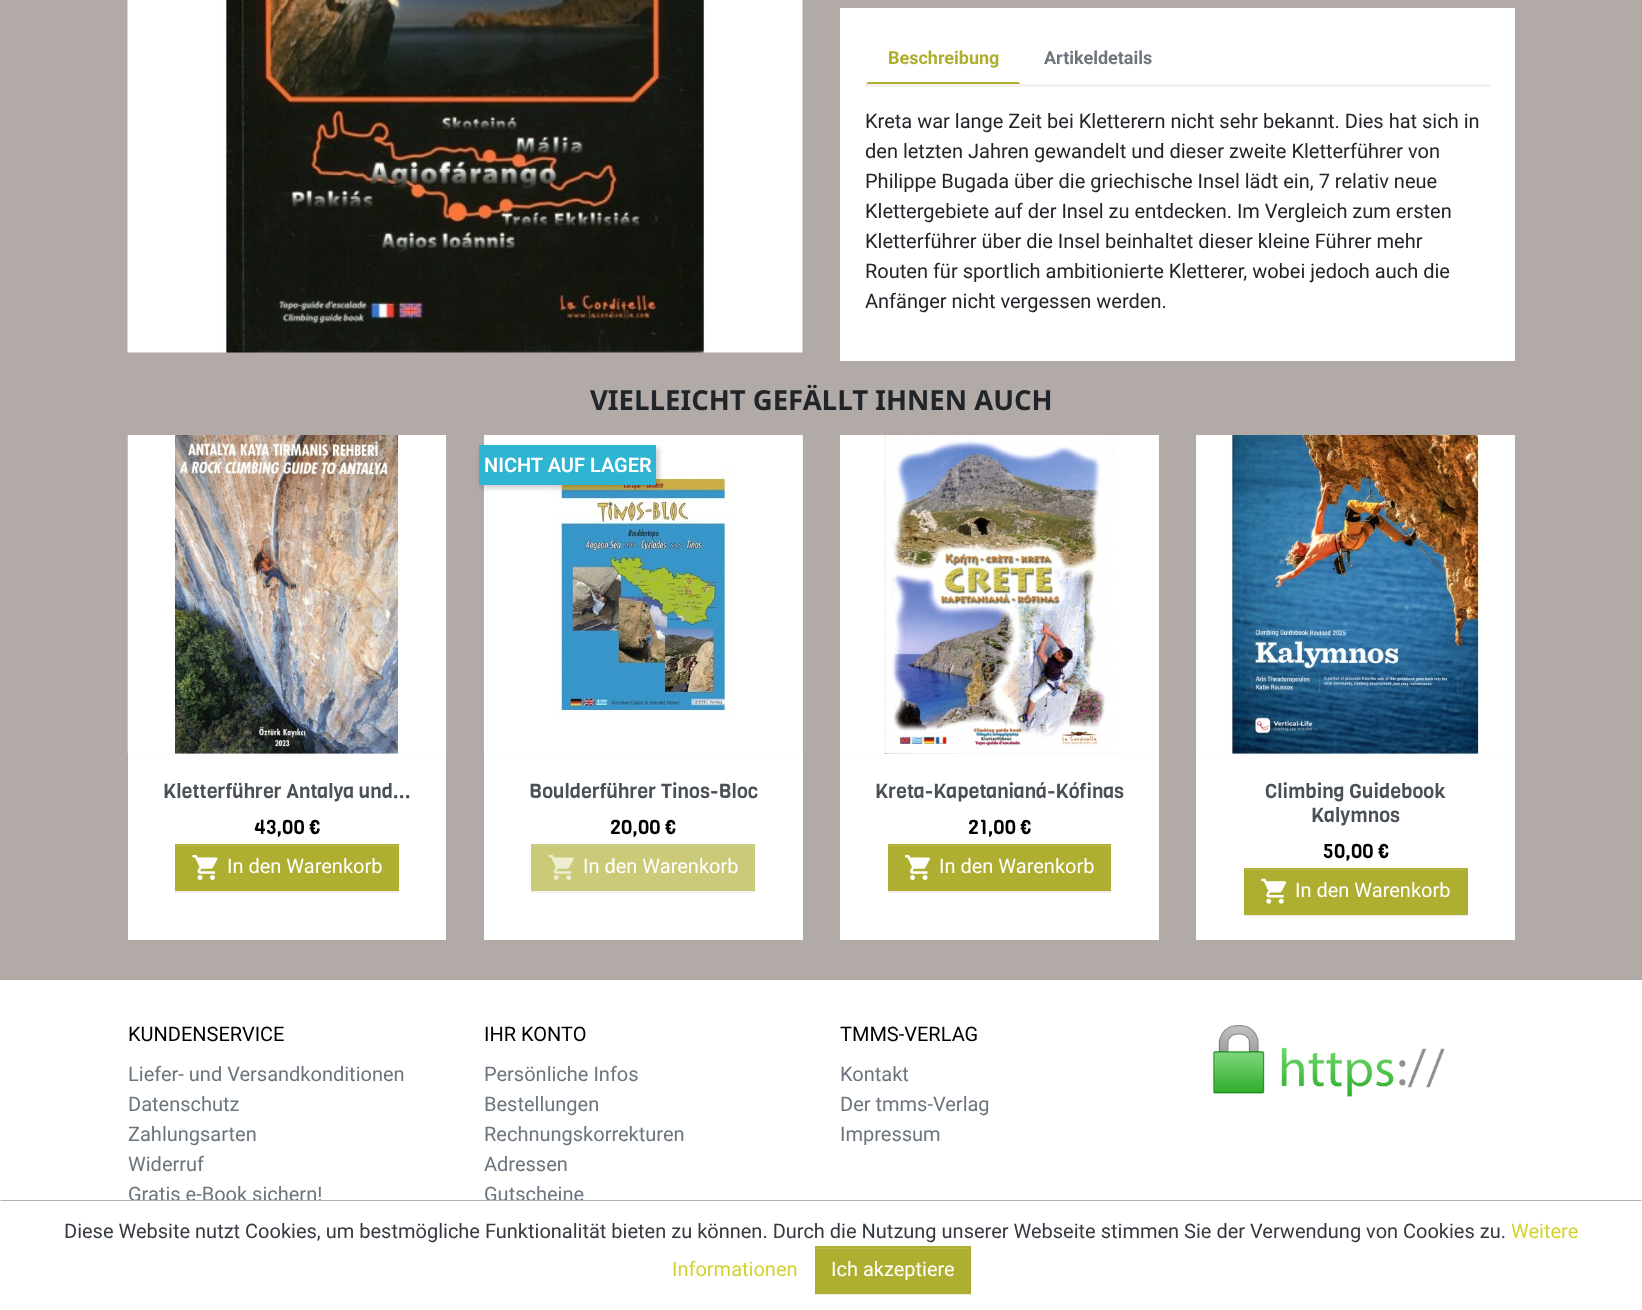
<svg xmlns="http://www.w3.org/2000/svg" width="1642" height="1310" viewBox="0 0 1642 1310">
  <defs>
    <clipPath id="clip1"><rect x="865" y="33" width="625" height="51"/></clipPath>
  </defs>
  <rect width="100%" height="100%" fill="rgb(178,170,167)"/>
  <image x="127" y="0" width="676" height="353" href="pic1.png"/>
  <rect x="840" y="8" width="675" height="353" fill="rgb(255,255,255)"/>
  <rect x="865" y="84" width="625" height="3" fill="rgb(241,241,241)"/>
  <g clip-path="url(#clip1)">
    <path d="M1021 86H865L868 82H1019Z" fill="rgb(174,174,48)"/>
  </g>
  <text x="888" y="64" font-family="Roboto" font-size="18" font-weight="bold" fill="rgb(174,174,48)">Beschreibung</text>
  <text x="1044" y="64" font-family="Roboto" font-size="18" font-weight="bold" fill="rgb(108,117,125)">Artikeldetails</text>
  <g font-family="Roboto" font-size="20" fill="rgb(33,37,41)">
    <text>
      <tspan x="865" y="128">Kreta war lange Zeit bei Kletterern nicht sehr bekannt. Dies hat sich in</tspan>
      <tspan x="865" y="158">den letzten Jahren gewandelt und dieser zweite Kletterführer von</tspan>
      <tspan x="865" y="188">Philippe Bugada über die griechische Insel lädt ein, 7 relativ neue</tspan>
      <tspan x="865" y="218">Klettergebiete auf der Insel zu entdecken. Im Vergleich zum ersten</tspan>
      <tspan x="865" y="248">Kletterführer über die Insel beinhaltet dieser kleine Führer mehr</tspan>
      <tspan x="865" y="278">Routen für sportlich ambitionierte Kletterer, wobei jedoch auch die</tspan>
      <tspan x="865" y="308">Anfänger nicht vergessen werden.</tspan>
    </text>
  </g>
  <text x="590" y="410" font-family="Noto Sans" font-size="27.5" font-weight="bold" fill="rgb(33,37,41)">VIELLEICHT GEFÄLLT IHNEN AUCH</text>
  <rect x="128" y="754" width="318" height="186" fill="rgb(255,255,255)"/>
  <rect x="128" y="753" width="318" height="1" fill="rgb(243,243,243)"/>
  <image x="127" y="435" width="320" height="319" href="pic2.png"/>
  <text x="163" y="798" font-family="Viga" font-size="20" fill="rgb(73,80,87)">Kletterführer Antalya und...</text>
  <text x="254" y="834" font-family="Viga" font-size="20" fill="rgb(0,0,0)">43,00 €</text>
  <rect x="175" y="845" width="224" height="48" fill="rgba(0,0,0,0.07)" filter="blur(0.5px)"/>
  <rect x="175" y="844" width="224" height="47" fill="rgb(174,174,48)"/>
  <rect x="176" y="845" width="222" height="1" fill="rgb(186,186,79)"/>
  <image x="192" y="855" width="26" height="25" href="pic3.png"/>
  <text x="227" y="873" font-family="Roboto" font-size="20" fill="rgb(255,255,255)">In den Warenkorb</text>
  <rect x="484" y="754" width="319" height="186" fill="rgb(255,255,255)"/>
  <rect x="484" y="435" width="319" height="319" fill="rgb(243,243,243)"/>
  <image x="483" y="435" width="319" height="319" href="pic4.png"/>
  <rect x="481" y="448" width="178" height="40" fill="rgba(0,0,0,0.2)" filter="blur(2.5px)"/>
  <rect x="479" y="445" width="177" height="40" fill="rgb(47,181,210)"/>
  <text x="484" y="472" font-family="Roboto" font-size="20" font-weight="600" fill="rgb(255,255,255)">NICHT AUF LAGER</text>
  <text x="529" y="798" font-family="Viga" font-size="20" fill="rgb(73,80,87)">Boulderführer Tinos-Bloc</text>
  <text x="610" y="834" font-family="Viga" font-size="20" fill="rgb(0,0,0)">20,00 €</text>
  <rect x="531" y="845" width="224" height="48" fill="rgba(89,89,89,0.07)" filter="blur(0.5px)"/>
  <rect x="531" y="844" width="224" height="47" fill="rgb(202,202,120)"/>
  <rect x="533" y="845" width="221" height="1" fill="rgb(210,210,140)"/>
  <image x="548" y="855" width="26" height="25" href="pic5.png"/>
  <text x="583" y="873" font-family="Roboto" font-size="20" fill="rgb(255,255,255)">In den Warenkorb</text>
  <rect x="840" y="754" width="319" height="186" fill="rgb(255,255,255)"/>
  <rect x="840" y="435" width="319" height="319" fill="rgb(243,243,243)"/>
  <image x="840" y="435" width="319" height="319" href="pic6.png"/>
  <text x="875" y="798" font-family="Viga" font-size="20" fill="rgb(73,80,87)">Kreta-Kapetanianá-Kófinas</text>
  <text x="968" y="834" font-family="Viga" font-size="20" fill="rgb(0,0,0)">21,00 €</text>
  <rect x="888" y="845" width="223" height="48" fill="rgba(0,0,0,0.07)" filter="blur(0.5px)"/>
  <rect x="888" y="844" width="223" height="47" fill="rgb(174,174,48)"/>
  <rect x="889" y="845" width="221" height="1" fill="rgb(186,186,79)"/>
  <image x="905" y="855" width="25" height="25" href="pic7.png"/>
  <text x="939" y="873" font-family="Roboto" font-size="20" fill="rgb(255,255,255)">In den Warenkorb</text>
  <rect x="1196" y="754" width="319" height="186" fill="rgb(255,255,255)"/>
  <rect x="1196" y="435" width="319" height="319" fill="rgb(243,243,243)"/>
  <image x="1196" y="435" width="319" height="319" href="pic8.png"/>
  <g font-family="Viga" font-size="20" fill="rgb(73,80,87)">
    <text x="1265" y="798">Climbing Guidebook</text>
    <text x="1311" y="822">Kalymnos</text>
  </g>
  <text x="1323" y="858" font-family="Viga" font-size="20" fill="rgb(0,0,0)">50,00 €</text>
  <rect x="1244" y="869" width="224" height="47" fill="rgba(0,0,0,0.07)" filter="blur(0.5px)"/>
  <rect x="1244" y="868" width="224" height="47" fill="rgb(174,174,48)"/>
  <rect x="1245" y="869" width="221" height="1" fill="rgb(186,186,79)"/>
  <image x="1261" y="878" width="26" height="26" href="pic9.png"/>
  <text x="1295" y="897" font-family="Roboto" font-size="20" fill="rgb(255,255,255)">In den Warenkorb</text>
  <rect x="0" y="980" width="1642" height="220" fill="rgb(255,255,255)"/>
  <text x="128" y="1041" font-family="Roboto" font-size="20" fill="rgb(0,0,0)">KUNDENSERVICE</text>
  <g font-family="Roboto" font-size="20" fill="rgb(108,117,125)">
    <text>
      <tspan x="128" y="1081">Liefer- und Versandkonditionen</tspan>
      <tspan x="128" y="1111">Datenschutz</tspan>
      <tspan x="128" y="1141">Zahlungsarten</tspan>
      <tspan x="128" y="1171">Widerruf</tspan>
      <tspan x="128" y="1201">Gratis e-Book sichern!</tspan>
    </text>
  </g>
  <text x="484" y="1041" font-family="Roboto" font-size="20" fill="rgb(0,0,0)">IHR KONTO</text>
  <g font-family="Roboto" font-size="20" fill="rgb(108,117,125)">
    <text>
      <tspan x="484" y="1081">Persönliche Infos</tspan>
      <tspan x="484" y="1111">Bestellungen</tspan>
      <tspan x="484" y="1141">Rechnungskorrekturen</tspan>
      <tspan x="484" y="1171">Adressen</tspan>
      <tspan x="484" y="1201">Gutscheine</tspan>
    </text>
  </g>
  <text x="840" y="1041" font-family="Roboto" font-size="20" fill="rgb(0,0,0)">TMMS-VERLAG</text>
  <g font-family="Roboto" font-size="20" fill="rgb(108,117,125)">
    <text>
      <tspan x="840" y="1081">Kontakt</tspan>
      <tspan x="840" y="1111">Der tmms-Verlag</tspan>
      <tspan x="840" y="1141">Impressum</tspan>
    </text>
  </g>
  <image x="1213" y="1025" width="232" height="72" href="pic10.png"/>
  <rect x="0" y="1200" width="1642" height="110" fill="rgb(255,255,255)"/>
  <path d="M0 1200H1642L1641 1201H1Z" fill="rgb(182,175,173)"/>
  <text x="64" y="1238" font-family="Roboto" font-size="20" fill="rgb(52,58,64)">Diese Website nutzt Cookies, um bestmögliche Funktionalität bieten zu können. Durch die Nutzung unserer Webseite stimmen Sie der Verwendung von Cookies zu.</text>
  <g font-family="Roboto" font-size="20" fill="rgb(210,210,49)">
    <text x="1511" y="1238">Weitere</text>
    <text x="672" y="1276">Informationen</text>
  </g>
  <rect x="815" y="1248" width="156" height="47" fill="rgba(0,0,0,0.07)" filter="blur(0.5px)"/>
  <rect x="815" y="1246" width="156" height="48" fill="rgb(174,174,48)"/>
  <rect x="816" y="1248" width="154" height="1" fill="rgb(186,186,79)"/>
  <text x="831" y="1276" font-family="Roboto" font-size="20" fill="rgb(255,255,255)">Ich akzeptiere</text>
</svg>
